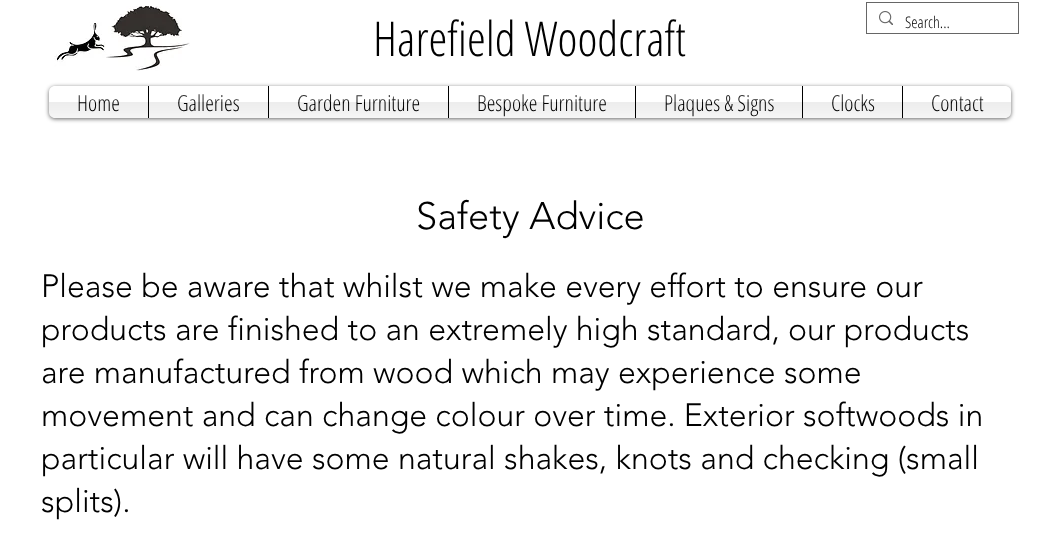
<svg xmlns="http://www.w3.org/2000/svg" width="1060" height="542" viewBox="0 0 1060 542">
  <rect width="100%" height="100%" fill="rgb(255,255,255)"/>
  <image x="54" y="6" width="136" height="65" href="pic1.png"/>
  <text x="373" y="56" font-family="Open Sans Condensed" font-size="48" font-weight="300" fill="rgb(0,0,0)">Harefield Woodcraft</text>
  <rect x="866.5" y="2.5" width="152" height="31" fill="none" stroke="rgb(102,102,102)"/>
  <image x="879" y="11" width="14" height="14" href="pic2.png"/>
  <text x="905" y="28" font-family="Open Sans Condensed" font-size="16" font-weight="300" fill="rgb(0,0,0)">Search...</text>
  <rect x="49" y="87" width="962" height="32" rx="6" fill="rgba(0,0,0,0.6)" filter="blur(2px)"/>
  <image x="49" y="112" width="962" height="6" href="pic3.png"/>
  <path d="M55 86H148V118H55C51.5 118 49 115.5 49 112V92C49 88.5 51.5 86 55 86Z" fill="rgb(255,255,255)"/>
  <text x="77" y="111" font-family="Open Sans Condensed" font-size="22" font-weight="300" fill="rgb(0,0,0)">Home</text>
  <image x="49" y="95" width="99" height="23" href="pic4.png"/>
  <rect x="149" y="86" width="119" height="32" fill="rgb(255,255,255)"/>
  <rect x="148" y="86" width="1" height="32" fill="rgb(0,0,0)"/>
  <text x="177" y="111" font-family="Open Sans Condensed" font-size="22" font-weight="300" fill="rgb(0,0,0)">Galleries</text>
  <image x="149" y="94" width="119" height="24" href="pic5.png"/>
  <rect x="269" y="86" width="179" height="32" fill="rgb(255,255,255)"/>
  <rect x="268" y="86" width="1" height="32" fill="rgb(0,0,0)"/>
  <text x="297" y="111" font-family="Open Sans Condensed" font-size="22" font-weight="300" fill="rgb(0,0,0)">Garden Furniture</text>
  <image x="269" y="94" width="179" height="24" href="pic6.png"/>
  <rect x="449" y="86" width="186" height="32" fill="rgb(255,255,255)"/>
  <rect x="448" y="86" width="1" height="32" fill="rgb(0,0,0)"/>
  <text x="477" y="111" font-family="Open Sans Condensed" font-size="22" font-weight="300" fill="rgb(0,0,0)">Bespoke Furniture</text>
  <image x="449" y="94" width="186" height="24" href="pic7.png"/>
  <rect x="636" y="86" width="166" height="32" fill="rgb(255,255,255)"/>
  <rect x="635" y="86" width="1" height="32" fill="rgb(0,0,0)"/>
  <text x="664" y="111" font-family="Open Sans Condensed" font-size="22" font-weight="300" fill="rgb(0,0,0)">Plaques &amp; Signs</text>
  <image x="636" y="94" width="166" height="24" href="pic8.png"/>
  <rect x="803" y="86" width="99" height="32" fill="rgb(255,255,255)"/>
  <rect x="802" y="86" width="1" height="32" fill="rgb(0,0,0)"/>
  <text x="831" y="111" font-family="Open Sans Condensed" font-size="22" font-weight="300" fill="rgb(0,0,0)">Clocks</text>
  <image x="803" y="94" width="99" height="24" href="pic9.png"/>
  <path d="M902 86H1005C1008.5 86 1011 88.5 1011 92V112C1011 115.5 1008.5 118 1005 118H902Z" fill="rgb(255,255,255)"/>
  <rect x="902" y="86" width="1" height="32" fill="rgb(0,0,0)"/>
  <text x="931" y="111" font-family="Open Sans Condensed" font-size="22" font-weight="300" fill="rgb(0,0,0)">Contact</text>
  <image x="903" y="95" width="108" height="23" href="pic10.png"/>
  <text x="416" y="229" font-family="'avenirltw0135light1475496'" font-size="38" font-weight="300" fill="rgb(0,0,0)">Safety Advice</text>
  <g font-family="'avenirltw0135light1475496'" font-size="32" font-weight="300" fill="rgb(0,0,0)">
    <text>
      <tspan x="41" y="297">Please be aware that whilst we make every effort to ensure our</tspan>
      <tspan x="41" y="340">products are finished to an extremely high standard, our products</tspan>
      <tspan x="41" y="383">are manufactured from wood which may experience some</tspan>
      <tspan x="41" y="426">movement and can change colour over time. Exterior softwoods in</tspan>
      <tspan x="41" y="469">particular will have some natural shakes, knots and checking (small</tspan>
      <tspan x="41" y="512">splits).</tspan>
    </text>
  </g>
</svg>
